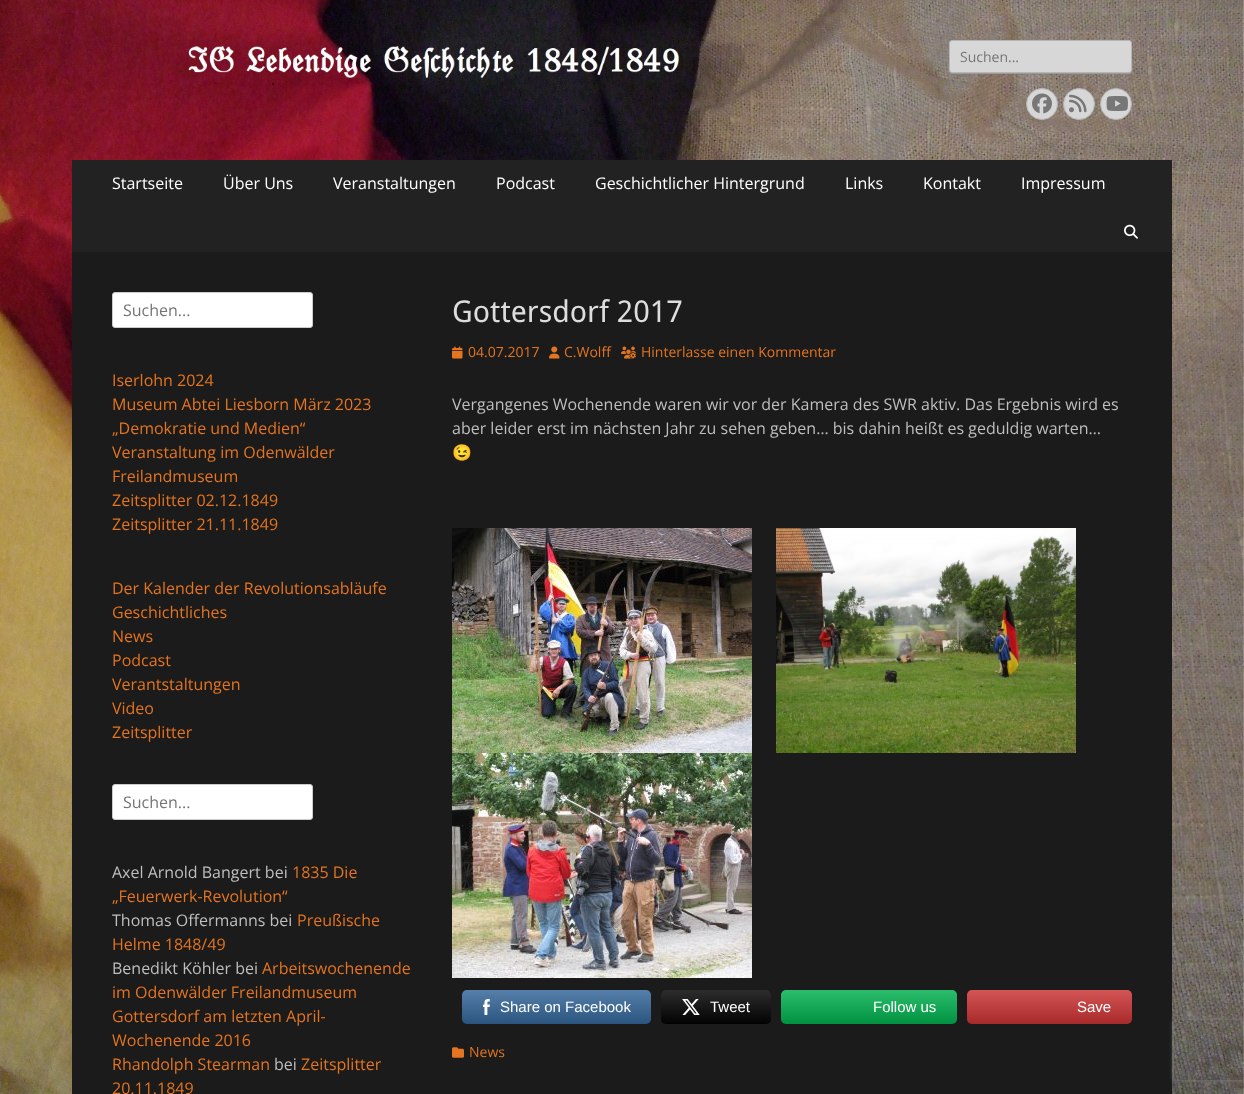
<svg xmlns="http://www.w3.org/2000/svg" width="1244" height="1094" viewBox="0 0 1244 1094">
  <defs>
    <linearGradient id="g1" gradientUnits="userSpaceOnUse" x1="557" y1="1024" x2="557" y2="990"><stop offset="0" stop-color="rgb(0,0,0)" stop-opacity="0.17"/><stop offset="1" stop-color="rgb(255,255,255)" stop-opacity="0.17"/></linearGradient>
    <linearGradient id="g2" gradientUnits="userSpaceOnUse" x1="716" y1="1024" x2="716" y2="990"><stop offset="0" stop-color="rgb(0,0,0)" stop-opacity="0.17"/><stop offset="1" stop-color="rgb(255,255,255)" stop-opacity="0.17"/></linearGradient>
    <linearGradient id="g3" gradientUnits="userSpaceOnUse" x1="869" y1="1024" x2="869" y2="990"><stop offset="0" stop-color="rgb(0,0,0)" stop-opacity="0.17"/><stop offset="1" stop-color="rgb(255,255,255)" stop-opacity="0.17"/></linearGradient>
    <linearGradient id="g4" gradientUnits="userSpaceOnUse" x1="1050" y1="1024" x2="1050" y2="990"><stop offset="0" stop-color="rgb(0,0,0)" stop-opacity="0.17"/><stop offset="1" stop-color="rgb(255,255,255)" stop-opacity="0.17"/></linearGradient>
    <clipPath id="clip1"><path d="M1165 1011H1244V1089H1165ZM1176 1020H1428C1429 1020 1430 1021 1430 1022V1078C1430 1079 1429 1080 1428 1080H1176C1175 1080 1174 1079 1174 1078V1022C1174 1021 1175 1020 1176 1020Z" clip-rule="evenodd"/></clipPath>
  </defs>
  <rect width="100%" height="100%" fill="rgb(255,255,255)"/>
  <image x="0" y="0" width="1244" height="1094" href="pic1.png"/>
  <path d="M949 70C949 72 950 74 952 74H1130C1132 73 1132 72 1132 70C1132 72 1131 73 1129 73H952C950 73 949 72 949 70Z" fill="rgb(153,153,153)"/>
  <rect x="949.5" y="40.5" width="182" height="32" rx="2.5" fill="rgb(215,215,215)" stroke="rgb(182,182,182)"/>
  <text x="960" y="62" font-family="Open Sans" font-size="14" fill="rgb(117,117,117)">Suchen...</text>
  <circle cx="1042" cy="104" r="15.5" fill="rgb(215,215,215)" stroke="rgb(182,182,182)"/>
  <image x="1032" y="93" width="20" height="21" href="pic2.png"/>
  <circle cx="1079" cy="104" r="15.5" fill="rgb(215,215,215)" stroke="rgb(182,182,182)"/>
  <image x="1069" y="94" width="18" height="19" href="pic3.png"/>
  <circle cx="1116" cy="104" r="15.5" fill="rgb(215,215,215)" stroke="rgb(182,182,182)"/>
  <image x="1106" y="96" width="22" height="15" href="pic4.png"/>
  <rect x="72" y="160" width="1100" height="92" fill="rgb(34,34,34)"/>
  <g font-family="Open Sans" font-size="16" fill="rgb(255,255,255)">
    <text x="112" y="189">Startseite</text>
    <text x="223" y="189">Über Uns</text>
    <text x="333" y="189">Veranstaltungen</text>
    <text x="496" y="189">Podcast</text>
    <text x="595" y="189">Geschichtlicher Hintergrund</text>
    <text x="845" y="189">Links</text>
    <text x="923" y="189">Kontakt</text>
    <text x="1021" y="189">Impressum</text>
  </g>
  <image x="1124" y="224" width="14" height="15" href="pic5.png"/>
  <rect x="72" y="252" width="1100" height="842" fill="rgb(27,27,27)"/>
  <rect x="112.5" y="292.5" width="200" height="35" rx="2.5" fill="rgb(255,255,255)" stroke="rgb(204,204,204)"/>
  <text x="123" y="316" font-family="Open Sans" font-size="16" fill="rgb(117,117,117)">Suchen...</text>
  <g font-family="Open Sans" font-size="16" fill="rgb(228,116,31)">
    <text>
      <tspan x="112" y="386">Iserlohn 2024</tspan>
      <tspan x="112" y="410">Museum Abtei Liesborn März 2023</tspan>
      <tspan x="112" y="434">„Demokratie und Medien“</tspan>
      <tspan x="112" y="458">Veranstaltung im Odenwälder</tspan>
      <tspan x="112" y="482">Freilandmuseum</tspan>
      <tspan x="112" y="506">Zeitsplitter 02.12.1849</tspan>
      <tspan x="112" y="530">Zeitsplitter 21.11.1849</tspan>
    </text>
    <text>
      <tspan x="112" y="594">Der Kalender der Revolutionsabläufe</tspan>
      <tspan x="112" y="618">Geschichtliches</tspan>
      <tspan x="112" y="642">News</tspan>
      <tspan x="112" y="666">Podcast</tspan>
      <tspan x="112" y="690">Verantstaltungen</tspan>
      <tspan x="112" y="714">Video</tspan>
      <tspan x="112" y="738">Zeitsplitter</tspan>
    </text>
  </g>
  <rect x="112.5" y="784.5" width="200" height="35" rx="2.5" fill="rgb(255,255,255)" stroke="rgb(204,204,204)"/>
  <text x="123" y="808" font-family="Open Sans" font-size="16" fill="rgb(117,117,117)">Suchen...</text>
  <text x="112" y="878" font-family="Open Sans" font-size="16" fill="rgb(190,190,190)">Axel Arnold Bangert bei</text>
  <g font-family="Open Sans" font-size="16" fill="rgb(228,116,31)">
    <text x="292" y="878">1835 Die</text>
    <text x="112" y="902">„Feuerwerk-Revolution“</text>
  </g>
  <text x="112" y="926" font-family="Open Sans" font-size="16" fill="rgb(190,190,190)">Thomas Offermanns bei</text>
  <g font-family="Open Sans" font-size="16" fill="rgb(228,116,31)">
    <text x="297" y="926">Preußische</text>
    <text x="112" y="950">Helme 1848/49</text>
  </g>
  <text x="112" y="974" font-family="Open Sans" font-size="16" fill="rgb(190,190,190)">Benedikt Köhler bei</text>
  <g font-family="Open Sans" font-size="16" fill="rgb(228,116,31)">
    <text x="262" y="974">Arbeitswochenende</text>
    <text>
      <tspan x="112" y="998">im Odenwälder Freilandmuseum</tspan>
      <tspan x="112" y="1022">Gottersdorf am letzten April-</tspan>
      <tspan x="112" y="1046">Wochenende 2016</tspan>
      <tspan x="112" y="1070">Rhandolph Stearman</tspan>
    </text>
  </g>
  <text x="274" y="1070" font-family="Open Sans" font-size="16" fill="rgb(190,190,190)">bei</text>
  <g font-family="Open Sans" font-size="16" fill="rgb(228,116,31)">
    <text x="301" y="1070">Zeitsplitter</text>
    <text x="112" y="1094">20.11.1849</text>
  </g>
  <text x="452" y="322" font-family="Droid Sans" font-size="30" fill="rgb(221,221,221)">Gottersdorf 2017</text>
  <image x="452" y="346" width="11" height="13" href="pic6.png"/>
  <text x="468" y="357" font-family="Open Sans" font-size="14" fill="rgb(228,116,31)">04.07.2017</text>
  <image x="549" y="346" width="11" height="13" href="pic7.png"/>
  <text x="564" y="357" font-family="Open Sans" font-size="14" fill="rgb(228,116,31)">C.Wolff</text>
  <image x="621" y="346" width="15" height="13" href="pic8.png"/>
  <text x="641" y="357" font-family="Open Sans" font-size="14" fill="rgb(228,116,31)">Hinterlasse einen Kommentar</text>
  <g font-family="Open Sans" font-size="16" fill="rgb(190,190,190)">
    <text>
      <tspan x="452" y="410">Vergangenes Wochenende waren wir vor der Kamera des SWR aktiv. Das Ergebnis wird es</tspan>
      <tspan x="452" y="434">aber leider erst im nächsten Jahr zu sehen geben… bis dahin heißt es geduldig warten…</tspan>
    </text>
  </g>
  <text x="452" y="458" font-family="Noto Color Emoji" font-size="16" fill="rgb(190,190,190)">😉</text>
  <image x="452" y="528" width="300" height="225" href="pic9.png"/>
  <image x="776" y="528" width="300" height="225" href="pic10.png"/>
  <image x="452" y="753" width="300" height="225" href="pic11.png"/>
  <rect x="462" y="990" width="189" height="34" rx="5" fill="rgb(51,102,153)"/>
  <rect x="462" y="990" width="189" height="34" rx="5" fill="url(#g1)"/>
  <image x="483" y="999" width="7" height="16" href="pic12.png"/>
  <text x="500" y="1012" font-family="Liberation Sans" font-size="15" fill="rgb(255,255,255)">Share on Facebook</text>
  <rect x="661" y="990" width="110" height="34" rx="5" fill="rgb(2,2,2)"/>
  <rect x="661" y="990" width="110" height="34" rx="5" fill="url(#g2)"/>
  <image x="682" y="999" width="18" height="16" href="pic13.png"/>
  <text x="710" y="1012" font-family="Liberation Sans" font-size="15" fill="rgb(255,255,255)">Tweet</text>
  <rect x="781" y="990" width="176" height="34" rx="5" fill="rgb(0,176,78)"/>
  <rect x="781" y="990" width="176" height="34" rx="5" fill="url(#g3)"/>
  <text x="873" y="1012" font-family="Liberation Sans" font-size="15" fill="rgb(255,255,255)">Follow us</text>
  <rect x="967" y="990" width="165" height="34" rx="5" fill="rgb(203,50,51)"/>
  <rect x="967" y="990" width="165" height="34" rx="5" fill="url(#g4)"/>
  <text x="1077" y="1012" font-family="Liberation Sans" font-size="15" fill="rgb(255,255,255)">Save</text>
  <image x="452" y="1047" width="12" height="11" href="pic14.png"/>
  <text x="469" y="1057" font-family="Open Sans" font-size="14" fill="rgb(228,116,31)">News</text>
  <g clip-path="url(#clip1)">
    <rect x="1174" y="1020" width="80" height="60" rx="2" fill="rgb(128,128,128)" filter="blur(2.5px)"/>
  </g>
</svg>
